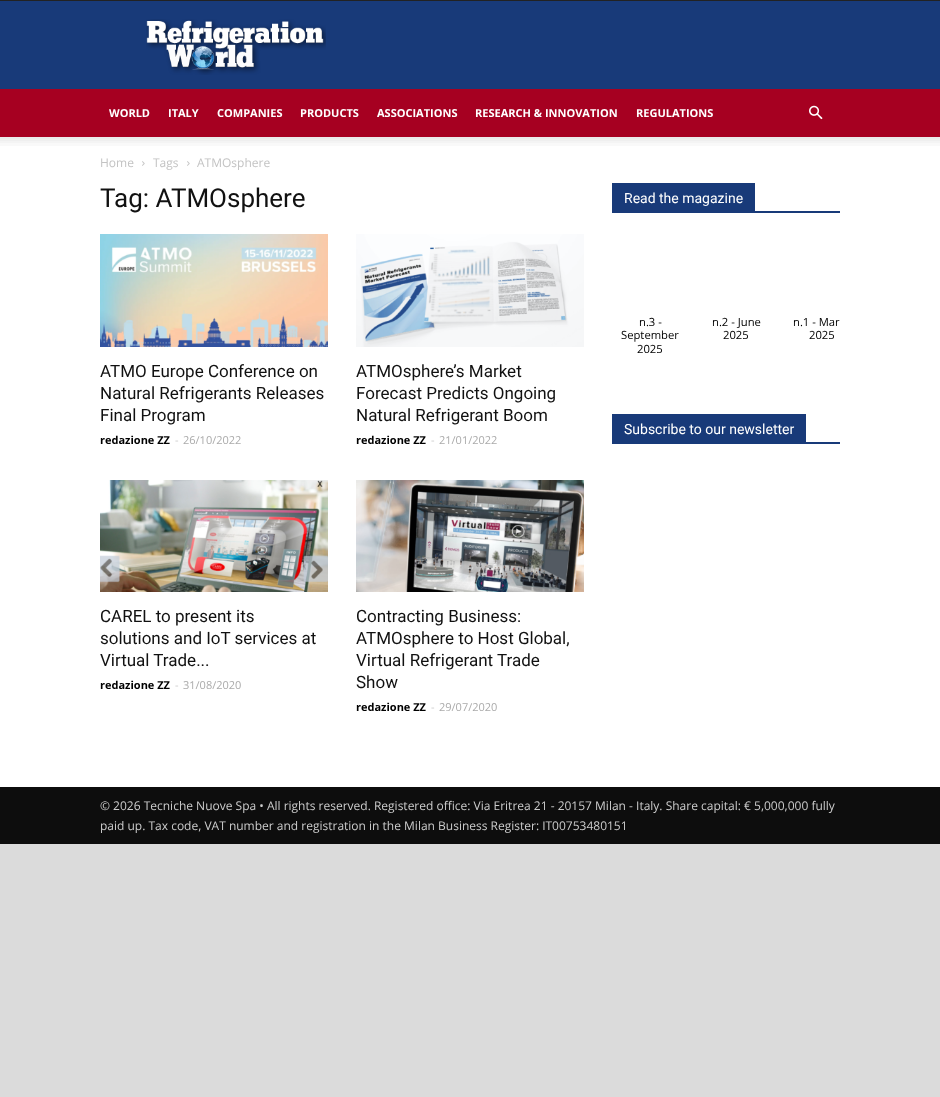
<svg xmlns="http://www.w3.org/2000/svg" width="940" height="1097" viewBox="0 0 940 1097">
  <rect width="100%" height="100%" fill="rgb(219,219,219)"/>
  <rect x="0" y="0" width="940" height="1" fill="rgb(34,34,34)"/>
  <rect x="0" y="1" width="940" height="88" fill="rgb(24,58,121)"/>
  <image x="146" y="19" width="180" height="56" href="pic1.png"/>
  <rect x="0" y="89" width="940" height="48" fill="rgb(166,0,33)"/>
  <g font-family="Open Sans" font-size="11" font-weight="bold" fill="rgb(255,255,255)">
    <text x="109" y="117">WORLD</text>
    <text x="168" y="117">ITALY</text>
    <text x="217" y="117">COMPANIES</text>
    <text x="300" y="117">PRODUCTS</text>
    <text x="377" y="117">ASSOCIATIONS</text>
    <text x="475" y="117">RESEARCH &amp; INNOVATION</text>
    <text x="636" y="117">REGULATIONS</text>
  </g>
  <image x="809" y="105" width="14" height="15" href="pic2.png"/>
  <rect x="0" y="137" width="940" height="650" fill="rgb(255,255,255)"/>
  <image x="0" y="137" width="940" height="9" href="pic3.png"/>
  <text x="100" y="167" font-family="Open Sans" font-size="12" fill="rgb(195,195,195)">Home</text>
  <image x="142" y="161" width="3" height="5" href="pic4.png"/>
  <text x="153" y="167" font-family="Open Sans" font-size="12" fill="rgb(195,195,195)">Tags</text>
  <image x="187" y="161" width="3" height="5" href="pic4.png"/>
  <text x="197" y="167" font-family="Open Sans" font-size="12" fill="rgb(195,195,195)">ATMOsphere</text>
  <text x="100" y="207" font-family="Roboto" font-size="26" fill="rgb(17,17,17)">Tag: ATMOsphere</text>
  <image x="100" y="234" width="228" height="113" href="pic5.png"/>
  <g font-family="Roboto" font-size="17" fill="rgb(17,17,17)">
    <text>
      <tspan x="100" y="377">ATMO Europe Conference on</tspan>
      <tspan x="100" y="399">Natural Refrigerants Releases</tspan>
      <tspan x="100" y="421">Final Program</tspan>
    </text>
  </g>
  <text x="100" y="444" font-family="Open Sans" font-size="11" font-weight="bold" fill="rgb(0,0,0)">redazione ZZ</text>
  <text x="175" y="444" font-family="Open Sans" font-size="11" fill="rgb(204,204,204)">-</text>
  <text x="183" y="444" font-family="Open Sans" font-size="11" fill="rgb(170,170,170)">26/10/2022</text>
  <image x="356" y="234" width="228" height="113" href="pic6.png"/>
  <g font-family="Roboto" font-size="17" fill="rgb(17,17,17)">
    <text>
      <tspan x="356" y="377">ATMOsphere’s Market</tspan>
      <tspan x="356" y="399">Forecast Predicts Ongoing</tspan>
      <tspan x="356" y="421">Natural Refrigerant Boom</tspan>
    </text>
  </g>
  <text x="356" y="444" font-family="Open Sans" font-size="11" font-weight="bold" fill="rgb(0,0,0)">redazione ZZ</text>
  <text x="431" y="444" font-family="Open Sans" font-size="11" fill="rgb(204,204,204)">-</text>
  <text x="439" y="444" font-family="Open Sans" font-size="11" fill="rgb(170,170,170)">21/01/2022</text>
  <image x="100" y="480" width="228" height="112" href="pic7.png"/>
  <g font-family="Roboto" font-size="17" fill="rgb(17,17,17)">
    <text>
      <tspan x="100" y="622">CAREL to present its</tspan>
      <tspan x="100" y="644">solutions and IoT services at</tspan>
      <tspan x="100" y="666">Virtual Trade...</tspan>
    </text>
  </g>
  <text x="100" y="689" font-family="Open Sans" font-size="11" font-weight="bold" fill="rgb(0,0,0)">redazione ZZ</text>
  <text x="175" y="689" font-family="Open Sans" font-size="11" fill="rgb(204,204,204)">-</text>
  <text x="183" y="689" font-family="Open Sans" font-size="11" fill="rgb(170,170,170)">31/08/2020</text>
  <image x="356" y="480" width="228" height="112" href="pic8.png"/>
  <g font-family="Roboto" font-size="17" fill="rgb(17,17,17)">
    <text>
      <tspan x="356" y="622">Contracting Business:</tspan>
      <tspan x="356" y="644">ATMOsphere to Host Global,</tspan>
      <tspan x="356" y="666">Virtual Refrigerant Trade</tspan>
      <tspan x="356" y="688">Show</tspan>
    </text>
  </g>
  <text x="356" y="711" font-family="Open Sans" font-size="11" font-weight="bold" fill="rgb(0,0,0)">redazione ZZ</text>
  <text x="431" y="711" font-family="Open Sans" font-size="11" fill="rgb(204,204,204)">-</text>
  <text x="439" y="711" font-family="Open Sans" font-size="11" fill="rgb(170,170,170)">29/07/2020</text>
  <rect x="612" y="211" width="228" height="2" fill="rgb(24,58,121)"/>
  <rect x="612" y="183" width="143" height="28" fill="rgb(24,58,121)"/>
  <text x="624" y="203" font-family="Roboto" font-size="14" fill="rgb(255,255,255)">Read the magazine</text>
  <g font-family="Open Sans" font-size="11.25" fill="rgb(0,0,0)">
    <text x="639" y="326">n.3 -</text>
    <text x="621" y="339">September</text>
    <text x="637" y="353">2025</text>
    <text x="712" y="326">n.2 - June</text>
    <text x="723" y="339">2025</text>
    <text x="793" y="326">n.1 - Mar</text>
    <text x="809" y="339">2025</text>
  </g>
  <rect x="612" y="442" width="228" height="2" fill="rgb(24,58,121)"/>
  <rect x="612" y="414" width="194" height="28" fill="rgb(24,58,121)"/>
  <text x="624" y="434" font-family="Roboto" font-size="14" fill="rgb(255,255,255)">Subscribe to our newsletter</text>
  <rect x="0" y="787" width="940" height="57" fill="rgb(13,13,13)"/>
  <g font-family="Open Sans" font-size="12" fill="rgb(204,204,204)">
    <text>
      <tspan x="100" y="810">© 2026 Tecniche Nuove Spa • All rights reserved. Registered office: Via Eritrea 21 - 20157 Milan - Italy. Share capital: € 5,000,000 fully</tspan>
      <tspan x="100" y="830">paid up. Tax code, VAT number and registration in the Milan Business Register: IT00753480151</tspan>
    </text>
  </g>
</svg>
